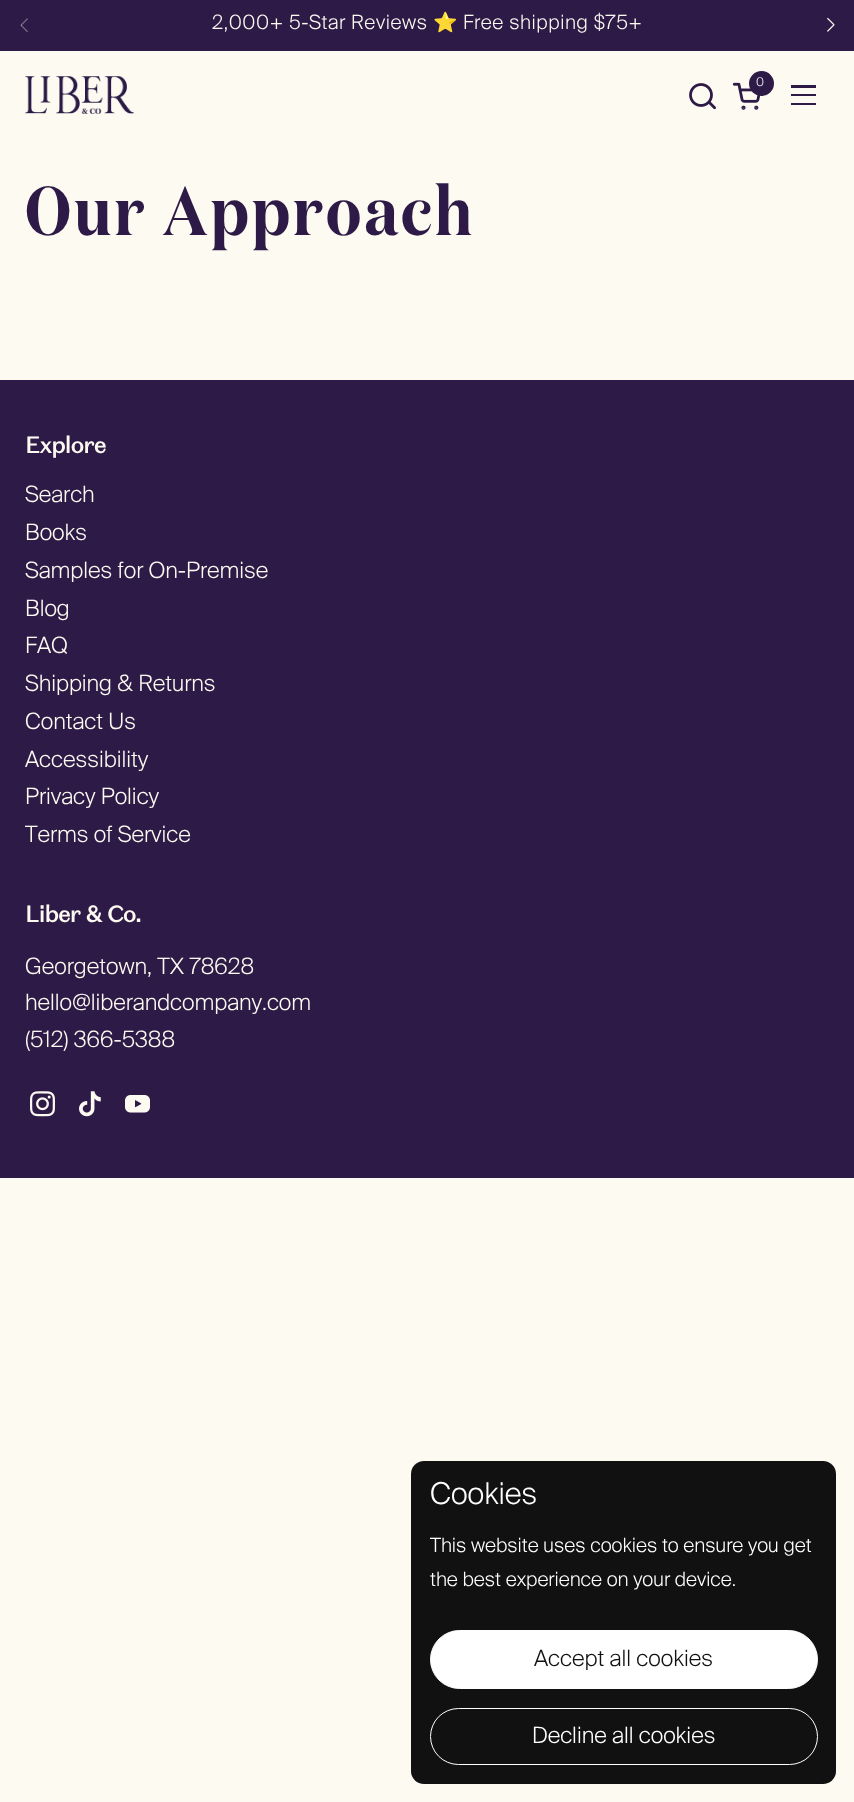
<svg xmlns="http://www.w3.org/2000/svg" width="854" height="1802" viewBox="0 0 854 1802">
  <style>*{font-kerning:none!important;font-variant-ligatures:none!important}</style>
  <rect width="100%" height="100%" fill="rgb(252,250,241)"/>
  <rect x="0" y="0" width="854" height="51" fill="rgb(46,26,71)"/>
  <image x="20" y="18" width="8" height="14" href="pic1.png"/>
  <text x="212" y="29" font-family="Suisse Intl" font-size="19.7" font-weight="300" letter-spacing="0.6" fill="rgb(252,250,241)">2,000+ 5-Star Reviews</text>
  <text x="433" y="29" font-family="Noto Color Emoji" font-size="19.7" letter-spacing="0.6" fill="rgb(252,250,241)">⭐</text>
  <text x="463" y="29" font-family="Suisse Intl" font-size="19.7" font-weight="300" letter-spacing="0.6" fill="rgb(252,250,241)">Free shipping $75+</text>
  <image x="827" y="17" width="8" height="15" href="pic2.png"/>
  <image x="25" y="76" width="109" height="38" href="pic3.png"/>
  <circle cx="761.5" cy="83.5" r="12.5" fill="rgb(46,26,71)"/>
  <text x="756" y="86" font-family="Suisse Intl" font-size="12" font-weight="300" fill="rgb(255,255,255)">0</text>
  <image x="732" y="82" width="28" height="28" href="pic4.png"/>
  <image x="689" y="83" width="27" height="27" href="pic5.png"/>
  <rect x="791" y="85" width="25" height="3" fill="rgb(46,26,71)"/>
  <rect x="791" y="94" width="25" height="2" fill="rgb(46,26,71)"/>
  <rect x="791" y="103" width="25" height="2" fill="rgb(46,26,71)"/>
  <text x="25" y="235" font-family="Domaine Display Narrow" font-size="69" font-weight="600" letter-spacing="3" fill="rgb(46,26,71)">Our Approach</text>
  <rect x="0" y="380" width="854" height="798" fill="rgb(46,26,71)"/>
  <text x="25" y="453" font-family="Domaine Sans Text" font-size="22.5" font-weight="bold" letter-spacing="-0.75" fill="rgb(252,250,241)">Explore</text>
  <g font-family="Suisse Intl" font-size="22.5" font-weight="300" fill="rgb(252,250,241)">
    <text>
      <tspan x="25" y="502">Search</tspan>
      <tspan x="25" y="540">Books</tspan>
      <tspan x="25" y="578">Samples for On-Premise</tspan>
      <tspan x="25" y="616">Blog</tspan>
      <tspan x="25" y="653">FAQ</tspan>
      <tspan x="25" y="691">Shipping &amp; Returns</tspan>
      <tspan x="25" y="729">Contact Us</tspan>
      <tspan x="25" y="767">Accessibility</tspan>
      <tspan x="25" y="804">Privacy Policy</tspan>
      <tspan x="25" y="842">Terms of Service</tspan>
    </text>
  </g>
  <text x="25" y="922" font-family="Domaine Sans Text" font-size="22.5" font-weight="bold" letter-spacing="-0.75" fill="rgb(252,250,241)">Liber &amp; Co.</text>
  <g font-family="Suisse Intl" font-size="22.5" font-weight="300" fill="rgb(252,250,241)">
    <text>
      <tspan x="25" y="974">Georgetown, TX 78628</tspan>
      <tspan x="25" y="1010">hello@liberandcompany.com</tspan>
      <tspan x="25" y="1047">(512) 366-5388</tspan>
    </text>
  </g>
  <image x="30" y="1091" width="25" height="26" href="pic6.png"/>
  <image x="79" y="1091" width="22" height="26" href="pic7.png"/>
  <image x="125" y="1095" width="25" height="18" href="pic8.png"/>
  <rect x="411" y="1461" width="425" height="323" rx="13" fill="rgb(17,17,17)"/>
  <text x="430" y="1504" font-family="Suisse Intl" font-size="30" font-weight="300" fill="rgb(255,255,255)">Cookies</text>
  <g font-family="Suisse Intl" font-size="19.7" font-weight="300" fill="rgb(255,255,255)">
    <text>
      <tspan x="430" y="1552">This website uses cookies to ensure you get</tspan>
      <tspan x="430" y="1586">the best experience on your device.</tspan>
    </text>
  </g>
  <rect x="430.5" y="1630.5" width="387" height="58" rx="29" fill="rgb(255,255,255)" stroke="rgb(255,255,255)"/>
  <text x="534" y="1666" font-family="Suisse Intl" font-size="22.5" font-weight="300" fill="rgb(17,17,17)">Accept all cookies</text>
  <rect x="430.5" y="1708.5" width="387" height="56" rx="28" fill="none" stroke="rgb(255,255,255)"/>
  <text x="532" y="1743" font-family="Suisse Intl" font-size="22.5" font-weight="300" fill="rgb(255,255,255)">Decline all cookies</text>
</svg>
